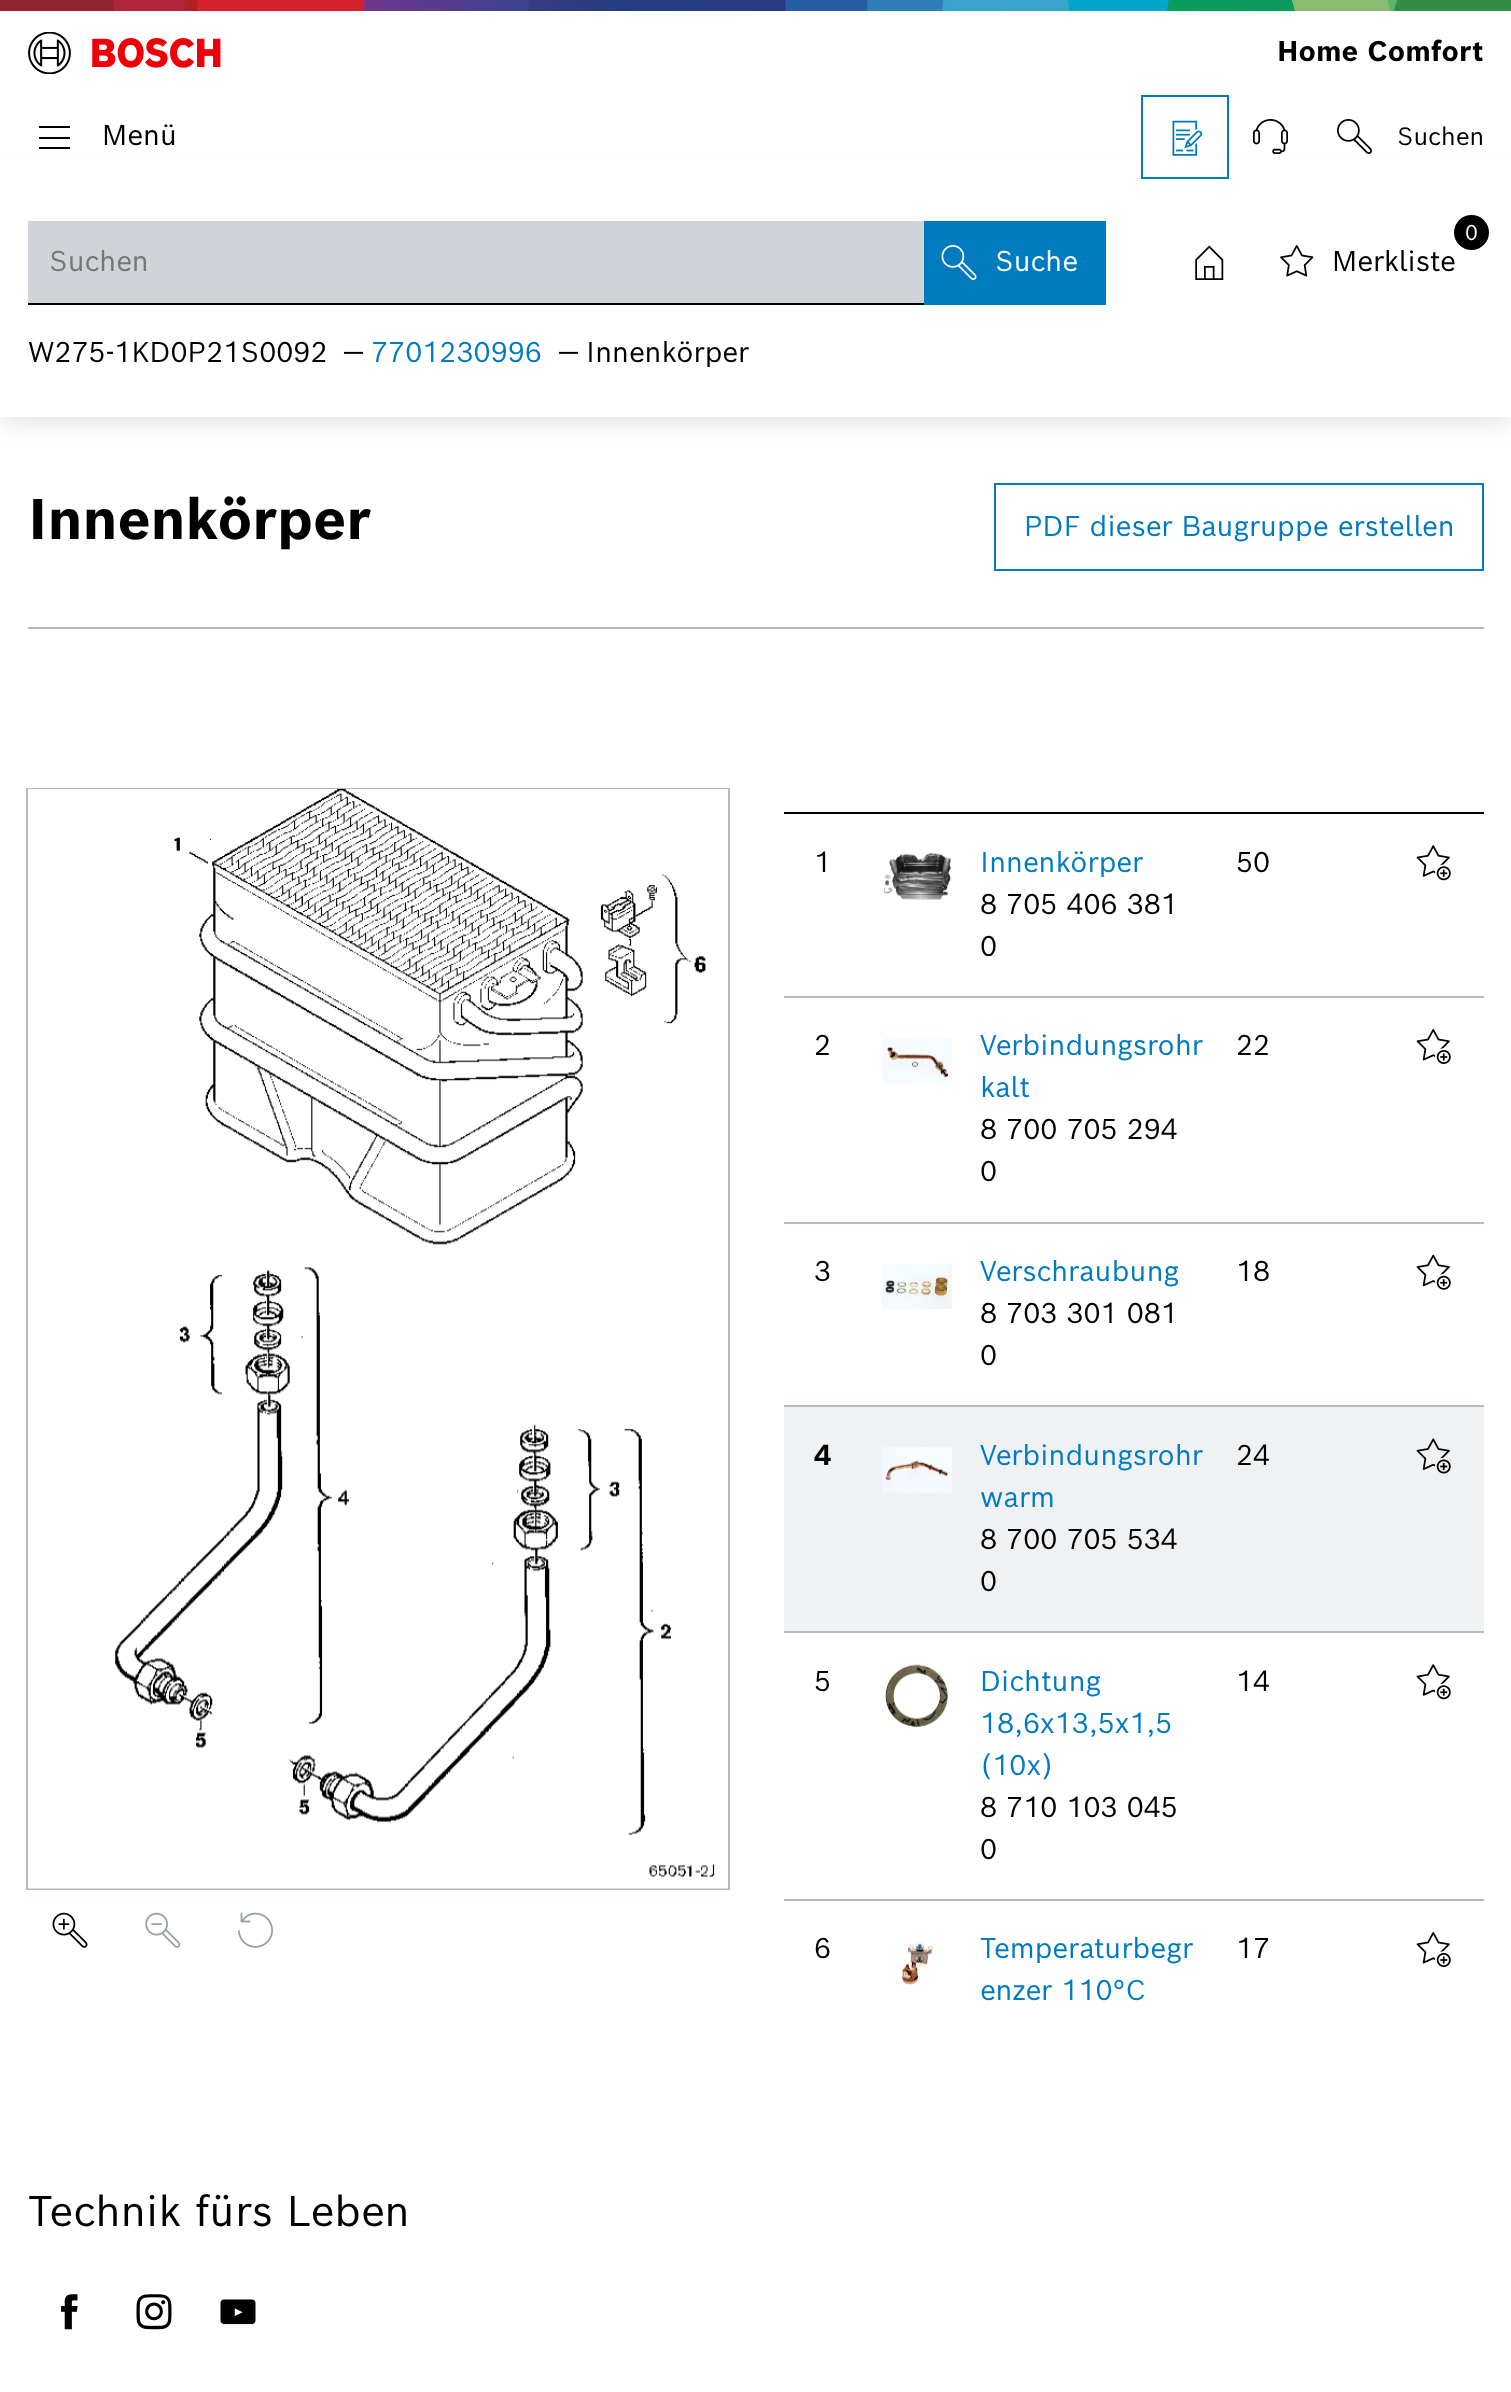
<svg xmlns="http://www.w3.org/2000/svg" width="1511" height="2392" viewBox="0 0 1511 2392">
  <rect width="100%" height="100%" fill="rgb(255,255,255)"/>
  <image x="0" y="0" width="1511" height="11" href="pic1.png"/>
  <image x="28" y="32" width="193" height="42" href="pic2.png"/>
  <text x="1277" y="61" font-family="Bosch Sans" font-size="28" font-weight="bold" fill="rgb(0,0,0)">Home Comfort</text>
  <rect x="0" y="179" width="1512" height="238" fill="rgba(0,0,0,0.16)" filter="blur(14px)"/>
  <rect x="0" y="158" width="1511" height="259" fill="rgb(255,255,255)"/>
  <rect x="1142" y="96" width="86" height="82" fill="none" stroke="rgb(0,123,192)" stroke-width="2"/>
  <image x="1172" y="120" width="31" height="36" href="pic3.png"/>
  <image x="1253" y="119" width="35" height="35" href="pic4.png"/>
  <image x="1337" y="119" width="35" height="35" href="pic5.png"/>
  <text x="1397" y="145" font-family="Bosch Sans" font-size="24.5" fill="rgb(0,0,0)">Suchen</text>
  <rect x="39" y="126" width="31" height="2" fill="rgb(0,0,0)"/>
  <rect x="39" y="137" width="31" height="2" fill="rgb(0,0,0)"/>
  <rect x="39" y="147" width="31" height="2" fill="rgb(0,0,0)"/>
  <text x="102" y="145" font-family="Bosch Sans" font-size="28" fill="rgb(0,0,0)">Menü</text>
  <rect x="28" y="221" width="896" height="82" fill="rgb(208,212,216)"/>
  <rect x="28" y="303" width="896" height="2" fill="rgb(0,0,0)"/>
  <text x="49" y="271" font-family="Bosch Sans" font-size="28" fill="rgb(117,117,117)">Suchen</text>
  <rect x="924" y="221" width="182" height="84" fill="rgb(0,123,192)"/>
  <image x="941" y="245" width="36" height="35" href="pic6.png"/>
  <text x="995" y="271" font-family="Bosch Sans" font-size="28" fill="rgb(255,255,255)">Suche</text>
  <image x="1195" y="245" width="29" height="35" href="pic7.png"/>
  <circle cx="1471.5" cy="232.5" r="17.5" fill="rgb(0,0,0)"/>
  <text x="1465" y="240" font-family="Bosch Sans" font-size="21" fill="rgb(255,255,255)">0</text>
  <image x="1280" y="245" width="34" height="32" href="pic8.png"/>
  <g font-family="Bosch Sans" font-size="28" fill="rgb(0,0,0)">
    <text x="1332" y="271">Merkliste</text>
    <text x="28" y="362">W275-1KD0P21S0092</text>
    <text x="345" y="362">—</text>
  </g>
  <text x="371" y="362" font-family="Bosch Sans" font-size="28" fill="rgb(0,123,192)">7701230996</text>
  <text x="560" y="362" font-family="Bosch Sans" font-size="28" fill="rgb(0,0,0)">— Innenkörper</text>
  <rect x="28" y="627" width="1456" height="2" fill="rgb(178,185,192)"/>
  <text x="28" y="539" font-family="Bosch Sans" font-size="56" font-weight="bold" fill="rgb(0,0,0)">Innenkörper</text>
  <rect x="995" y="484" width="488" height="86" fill="none" stroke="rgb(0,123,192)" stroke-width="2"/>
  <text x="1024" y="536" font-family="Bosch Sans" font-size="28" fill="rgb(0,123,192)">PDF dieser Baugruppe erstellen</text>
  <rect x="27" y="789" width="702" height="1100" fill="none" stroke="rgb(178,185,192)" stroke-width="2"/>
  <image x="28" y="789" width="700" height="1100" href="pic9.png"/>
  <image x="52" y="1912" width="36" height="36" href="pic10.png"/>
  <image x="145" y="1912" width="36" height="36" href="pic11.png"/>
  <image x="238" y="1912" width="35" height="36" href="pic12.png"/>
  <rect x="784" y="812" width="700" height="2" fill="rgb(0,0,0)"/>
  <rect x="784" y="996" width="700" height="2" fill="rgb(178,185,192)"/>
  <text x="814" y="872" font-family="Bosch Sans" font-size="28" fill="rgb(0,0,0)">1</text>
  <image x="883" y="852" width="68" height="48" href="pic13.png"/>
  <text x="980" y="872" font-family="Bosch Sans" font-size="28" fill="rgb(0,123,192)">Innenkörper</text>
  <g font-family="Bosch Sans" font-size="28" fill="rgb(0,0,0)">
    <text>
      <tspan x="980" y="914">8 705 406 381</tspan>
      <tspan x="980" y="956">0</tspan>
    </text>
    <text x="1236" y="872">50</text>
  </g>
  <image x="1416" y="845" width="35" height="36" href="pic14.png"/>
  <rect x="784" y="1222" width="700" height="2" fill="rgb(178,185,192)"/>
  <text x="814" y="1055" font-family="Bosch Sans" font-size="28" fill="rgb(0,0,0)">2</text>
  <image x="882" y="1038" width="70" height="46" href="pic15.png"/>
  <g font-family="Bosch Sans" font-size="28" fill="rgb(0,123,192)">
    <text>
      <tspan x="980" y="1055">Verbindungsrohr</tspan>
      <tspan x="980" y="1097">kalt</tspan>
    </text>
  </g>
  <g font-family="Bosch Sans" font-size="28" fill="rgb(0,0,0)">
    <text>
      <tspan x="980" y="1139">8 700 705 294</tspan>
      <tspan x="980" y="1181">0</tspan>
    </text>
    <text x="1236" y="1055">22</text>
  </g>
  <image x="1416" y="1029" width="35" height="35" href="pic16.png"/>
  <rect x="784" y="1405" width="700" height="2" fill="rgb(178,185,192)"/>
  <text x="814" y="1281" font-family="Bosch Sans" font-size="28" fill="rgb(0,0,0)">3</text>
  <image x="882" y="1264" width="70" height="45" href="pic17.png"/>
  <text x="980" y="1281" font-family="Bosch Sans" font-size="28" fill="rgb(0,123,192)">Verschraubung</text>
  <g font-family="Bosch Sans" font-size="28" fill="rgb(0,0,0)">
    <text>
      <tspan x="980" y="1323">8 703 301 081</tspan>
      <tspan x="980" y="1365">0</tspan>
    </text>
    <text x="1236" y="1281">18</text>
  </g>
  <image x="1416" y="1254" width="35" height="36" href="pic18.png"/>
  <rect x="784" y="1407" width="700" height="224" fill="rgb(239,241,242)"/>
  <rect x="784" y="1631" width="700" height="2" fill="rgb(178,185,192)"/>
  <text x="814" y="1465" font-family="Bosch Sans" font-size="28" font-weight="bold" fill="rgb(0,0,0)">4</text>
  <image x="882" y="1447" width="70" height="46" href="pic19.png"/>
  <g font-family="Bosch Sans" font-size="28" fill="rgb(0,123,192)">
    <text>
      <tspan x="980" y="1465">Verbindungsrohr</tspan>
      <tspan x="980" y="1507">warm</tspan>
    </text>
  </g>
  <g font-family="Bosch Sans" font-size="28" fill="rgb(0,0,0)">
    <text>
      <tspan x="980" y="1549">8 700 705 534</tspan>
      <tspan x="980" y="1591">0</tspan>
    </text>
    <text x="1236" y="1465">24</text>
  </g>
  <image x="1416" y="1438" width="35" height="36" href="pic20.png"/>
  <rect x="784" y="1899" width="700" height="2" fill="rgb(178,185,192)"/>
  <text x="814" y="1691" font-family="Bosch Sans" font-size="28" fill="rgb(0,0,0)">5</text>
  <image x="882" y="1664" width="70" height="63" href="pic21.png"/>
  <g font-family="Bosch Sans" font-size="28" fill="rgb(0,123,192)">
    <text>
      <tspan x="980" y="1691">Dichtung</tspan>
      <tspan x="980" y="1733">18,6x13,5x1,5</tspan>
      <tspan x="980" y="1775">(10x)</tspan>
    </text>
  </g>
  <g font-family="Bosch Sans" font-size="28" fill="rgb(0,0,0)">
    <text>
      <tspan x="980" y="1817">8 710 103 045</tspan>
      <tspan x="980" y="1859">0</tspan>
    </text>
    <text x="1236" y="1691">14</text>
  </g>
  <image x="1416" y="1664" width="35" height="36" href="pic14.png"/>
  <text x="814" y="1958" font-family="Bosch Sans" font-size="28" fill="rgb(0,0,0)">6</text>
  <image x="901" y="1943" width="32" height="43" href="pic22.png"/>
  <g font-family="Bosch Sans" font-size="28" fill="rgb(0,123,192)">
    <text>
      <tspan x="980" y="1958">Temperaturbegr</tspan>
      <tspan x="980" y="2000">enzer 110°C</tspan>
    </text>
  </g>
  <text x="1236" y="1958" font-family="Bosch Sans" font-size="28" fill="rgb(0,0,0)">17</text>
  <image x="1416" y="1932" width="35" height="35" href="pic16.png"/>
  <text x="28" y="2226" font-family="Bosch Sans" font-size="42" fill="rgb(0,0,0)">Technik fürs Leben</text>
  <image x="61" y="2294" width="17" height="36" href="pic23.png"/>
  <image x="136" y="2294" width="36" height="36" href="pic24.png"/>
  <image x="220" y="2299" width="36" height="26" href="pic25.png"/>
</svg>
